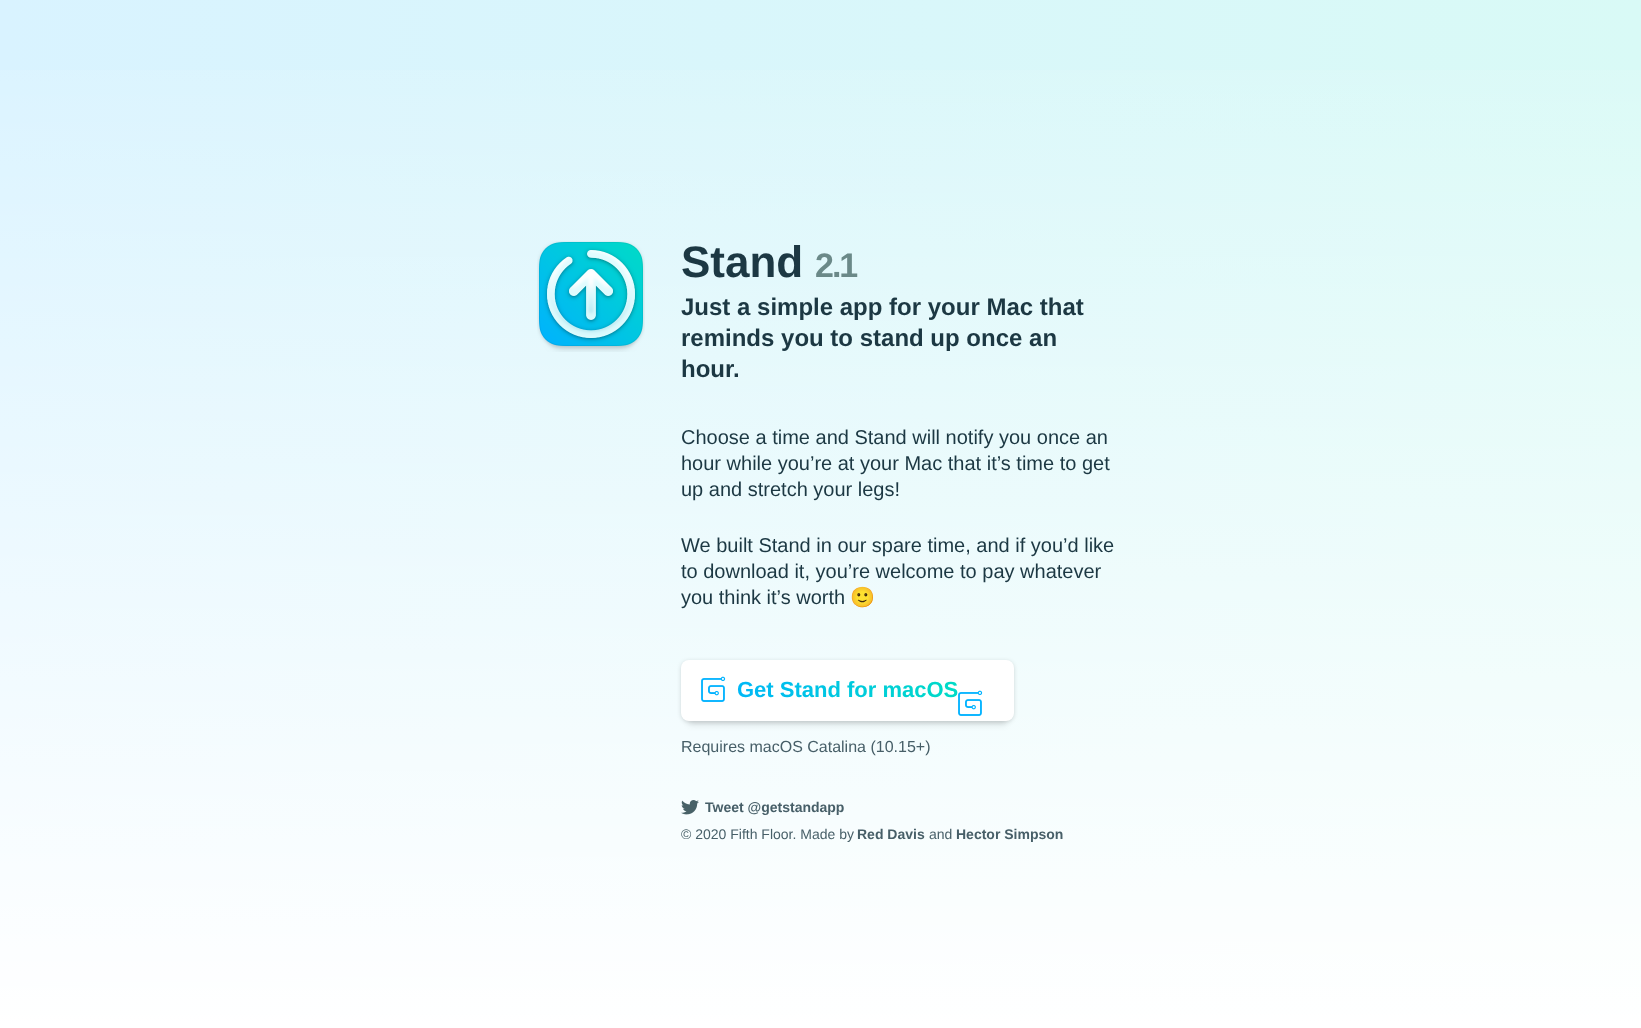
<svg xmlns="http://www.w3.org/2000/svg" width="1641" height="1028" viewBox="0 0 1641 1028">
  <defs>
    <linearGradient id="g1" gradientUnits="userSpaceOnUse" x1="701" y1="690" x2="958" y2="690"><stop offset="0" stop-color="rgb(0,178,255)"/><stop offset="1" stop-color="rgb(0,219,198)"/></linearGradient>
    <linearGradient id="g2" gradientUnits="userSpaceOnUse" x1="0" y1="514" x2="1641" y2="514"><stop offset="0" stop-color="rgb(217,243,255)"/><stop offset="1" stop-color="rgb(217,250,246)"/></linearGradient>
    <linearGradient id="g3" gradientUnits="userSpaceOnUse" x1="820" y1="0" x2="821" y2="1028"><stop offset="0" stop-color="rgb(255,255,255)" stop-opacity="0"/><stop offset="1" stop-color="rgb(255,255,255)"/></linearGradient>
  </defs>
  <rect width="100%" height="100%" fill="rgb(255,255,255)"/>
  <rect x="0" y="0" width="1641" height="1023" fill="url(#g2)"/>
  <rect x="0" y="70" width="1641" height="953" fill="url(#g3)"/>
  <image x="537" y="241" width="108" height="111" href="pic1.png"/>
  <text x="681" y="277" font-family="Liberation Sans" font-size="44" font-weight="bold" fill="rgb(28,56,67)">Stand</text>
  <text x="815" y="277" font-family="Liberation Sans" font-size="34" font-weight="bold" letter-spacing="-2" fill="rgb(107,137,136)">2.1</text>
  <g font-family="Liberation Sans" font-size="24" font-weight="bold" fill="rgb(28,56,67)">
    <text>
      <tspan x="681" y="315">Just a simple app for your Mac that</tspan>
      <tspan x="681" y="346">reminds you to stand up once an</tspan>
      <tspan x="681" y="377">hour.</tspan>
    </text>
  </g>
  <g font-family="Liberation Sans" font-size="20" fill="rgb(28,56,67)">
    <text>
      <tspan x="681" y="444">Choose a time and Stand will notify you once an</tspan>
      <tspan x="681" y="470">hour while you’re at your Mac that it’s time to get</tspan>
      <tspan x="681" y="496">up and stretch your legs!</tspan>
    </text>
    <text>
      <tspan x="681" y="552">We built Stand in our spare time, and if you’d like</tspan>
      <tspan x="681" y="578">to download it, you’re welcome to pay whatever</tspan>
      <tspan x="681" y="604">you think it’s worth</tspan>
    </text>
  </g>
  <text x="850" y="604" font-family="Noto Color Emoji" font-size="20" fill="rgb(28,56,67)">🙂</text>
  <rect x="689" y="680" width="317" height="45" fill="rgba(0,0,0,0.1)" filter="blur(3px)"/>
  <rect x="681" y="661" width="333" height="61" rx="8" fill="rgba(0,0,0,0.15)" filter="blur(2px)"/>
  <rect x="681" y="660" width="333" height="61" rx="8" fill="rgb(255,255,255)"/>
  <image x="701" y="676" width="25" height="26" href="pic2.png"/>
  <text x="737" y="697" font-family="Liberation Sans" font-size="22" font-weight="bold" fill="url(#g1)">Get Stand for macOS</text>
  <image x="958" y="690" width="25" height="26" href="pic2.png"/>
  <text x="681" y="752" font-family="Liberation Sans" font-size="16" fill="rgb(71,95,104)">Requires macOS Catalina (10.15+)</text>
  <image x="681" y="800" width="18" height="15" href="pic3.png"/>
  <text x="705" y="812" font-family="Liberation Sans" font-size="14" font-weight="bold" fill="rgb(71,95,104)">Tweet @getstandapp</text>
  <text x="681" y="839" font-family="Liberation Sans" font-size="14" fill="rgb(71,95,104)">© 2020 Fifth Floor. Made by</text>
  <text x="857" y="839" font-family="Liberation Sans" font-size="14" font-weight="bold" fill="rgb(71,95,104)">Red Davis</text>
  <text x="929" y="839" font-family="Liberation Sans" font-size="14" fill="rgb(71,95,104)">and</text>
  <text x="956" y="839" font-family="Liberation Sans" font-size="14" font-weight="bold" fill="rgb(71,95,104)">Hector Simpson</text>
</svg>
